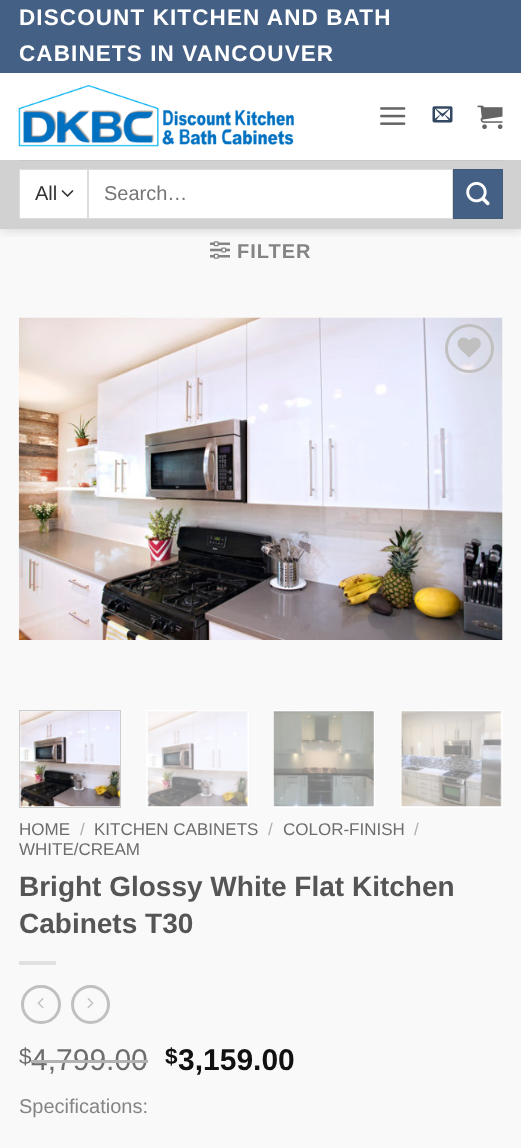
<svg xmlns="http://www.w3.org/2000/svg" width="521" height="1148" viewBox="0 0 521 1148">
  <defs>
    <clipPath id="clip1"><rect x="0" y="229" width="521" height="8"/></clipPath>
  </defs>
  <rect width="100%" height="100%" fill="rgb(250,249,249)"/>
  <image x="210" y="241" width="20" height="18" href="pic6.png"/>
  <g clip-path="url(#clip1)">
    <rect x="1" y="1" width="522" height="229" fill="rgba(0,0,0,0.15)" filter="blur(6px)"/>
  </g>
  <rect x="0" y="0" width="521" height="73" fill="rgb(68,96,132)"/>
  <g font-family="Liberation Sans" font-size="22.5" font-weight="bold" letter-spacing="1.1" fill="rgb(255,255,255)">
    <text>
      <tspan x="19" y="25">DISCOUNT KITCHEN AND BATH</tspan>
      <tspan x="19" y="61">CABINETS IN VANCOUVER</tspan>
    </text>
  </g>
  <rect x="0" y="73" width="521" height="87" fill="rgba(255,255,255,0.9)"/>
  <image x="18" y="85" width="276" height="62" href="pic1.png"/>
  <image x="380" y="107" width="26" height="18" href="pic2.png"/>
  <image x="432" y="106" width="21" height="17" href="pic3.png"/>
  <image x="477" y="105" width="26" height="24" href="pic4.png"/>
  <rect x="0" y="160" width="521" height="69" fill="rgb(209,209,209)"/>
  <rect x="19" y="160" width="484" height="1" fill="rgb(201,201,201)"/>
  <rect x="20" y="170" width="67" height="48" fill="rgb(255,255,255)"/>
  <path d="M62.5 191L67.5 196L72.5 191" fill="none" stroke="rgb(51,51,51)" stroke-width="1.7" stroke-linecap="round" stroke-linejoin="round"/>
  <rect x="19.5" y="169.5" width="68" height="49" fill="none" stroke="rgb(221,221,221)"/>
  <text x="35" y="200" font-family="Liberation Sans" font-size="20" fill="rgb(51,51,51)">All</text>
  <rect x="88.5" y="169.5" width="364" height="49" fill="rgb(255,255,255)" stroke="rgb(221,221,221)"/>
  <text x="104" y="200" font-family="Liberation Sans" font-size="20" fill="rgb(117,117,117)">Search…</text>
  <rect x="453.5" y="169.5" width="49" height="49" fill="rgb(68,96,132)" stroke="rgb(65,91,125)"/>
  <image x="466" y="181" width="24" height="25" href="pic5.png"/>
  <text x="237" y="258" font-family="Liberation Sans" font-size="20" font-weight="bold" letter-spacing="1" fill="rgb(133,131,131)">FILTER</text>
  <image x="18" y="317" width="485" height="323" href="pic7.png"/>
  <circle cx="469.5" cy="348.5" r="23" fill="none" stroke="rgb(192,192,192)" stroke-width="3"/>
  <image x="457" y="337" width="24" height="21" href="pic8.png"/>
  <rect x="19.5" y="710.5" width="101" height="97" fill="rgb(255,255,255)" stroke="rgb(204,204,204)"/>
  <image x="19" y="711" width="102" height="96" href="pic9.png"/>
  <rect x="146" y="710" width="103" height="98" fill="rgb(255,255,255)"/>
  <image x="147" y="711" width="101" height="96" href="pic10.png"/>
  <rect x="273" y="710" width="102" height="98" fill="rgb(255,255,255)"/>
  <image x="273" y="711" width="101" height="96" href="pic11.png"/>
  <rect x="400" y="710" width="103" height="98" fill="rgb(255,255,255)"/>
  <image x="400" y="711" width="102" height="96" href="pic12.png"/>
  <text x="19" y="835" font-family="Liberation Sans" font-size="17" fill="rgb(109,109,109)">HOME</text>
  <text x="80" y="835" font-family="Liberation Sans" font-size="17" fill="rgb(174,174,174)">/</text>
  <text x="94" y="835" font-family="Liberation Sans" font-size="17" fill="rgb(109,109,109)">KITCHEN CABINETS</text>
  <text x="268" y="835" font-family="Liberation Sans" font-size="17" fill="rgb(174,174,174)">/</text>
  <text x="283" y="835" font-family="Liberation Sans" font-size="17" fill="rgb(109,109,109)">COLOR-FINISH</text>
  <text x="414" y="835" font-family="Liberation Sans" font-size="17" fill="rgb(174,174,174)">/</text>
  <text x="19" y="855" font-family="Liberation Sans" font-size="17" fill="rgb(109,109,109)">WHITE/CREAM</text>
  <g font-family="Liberation Sans" font-size="28" font-weight="bold" fill="rgb(85,85,85)">
    <text>
      <tspan x="19" y="896">Bright Glossy White Flat Kitchen</tspan>
      <tspan x="19" y="933">Cabinets T30</tspan>
    </text>
  </g>
  <rect x="19" y="961" width="37" height="4" fill="rgb(225,224,224)"/>
  <rect x="22.5" y="986.5" width="37" height="36" rx="18" fill="none" stroke="rgb(192,192,192)" stroke-width="3"/>
  <image x="37" y="998" width="7" height="11" href="pic13.png"/>
  <circle cx="90.5" cy="1004.5" r="18" fill="none" stroke="rgb(192,192,192)" stroke-width="3"/>
  <image x="87" y="998" width="7" height="11" href="pic14.png"/>
  <text x="19" y="1064" font-family="Liberation Sans" font-size="22.5" fill="rgb(109,109,109)">$</text>
  <text x="31" y="1070" font-family="Liberation Sans" font-size="30" fill="rgb(109,109,109)">4,799.00</text>
  <rect x="31" y="1060" width="117" height="3" fill="rgb(180,178,178)"/>
  <text x="165" y="1064" font-family="Liberation Sans" font-size="22.5" font-weight="bold" fill="rgb(17,17,17)">$</text>
  <text x="178" y="1070" font-family="Liberation Sans" font-size="30" font-weight="bold" fill="rgb(17,17,17)">3,159.00</text>
  <text x="19" y="1113" font-family="Liberation Sans" font-size="20" fill="rgb(133,131,131)">Specifications:</text>
</svg>
